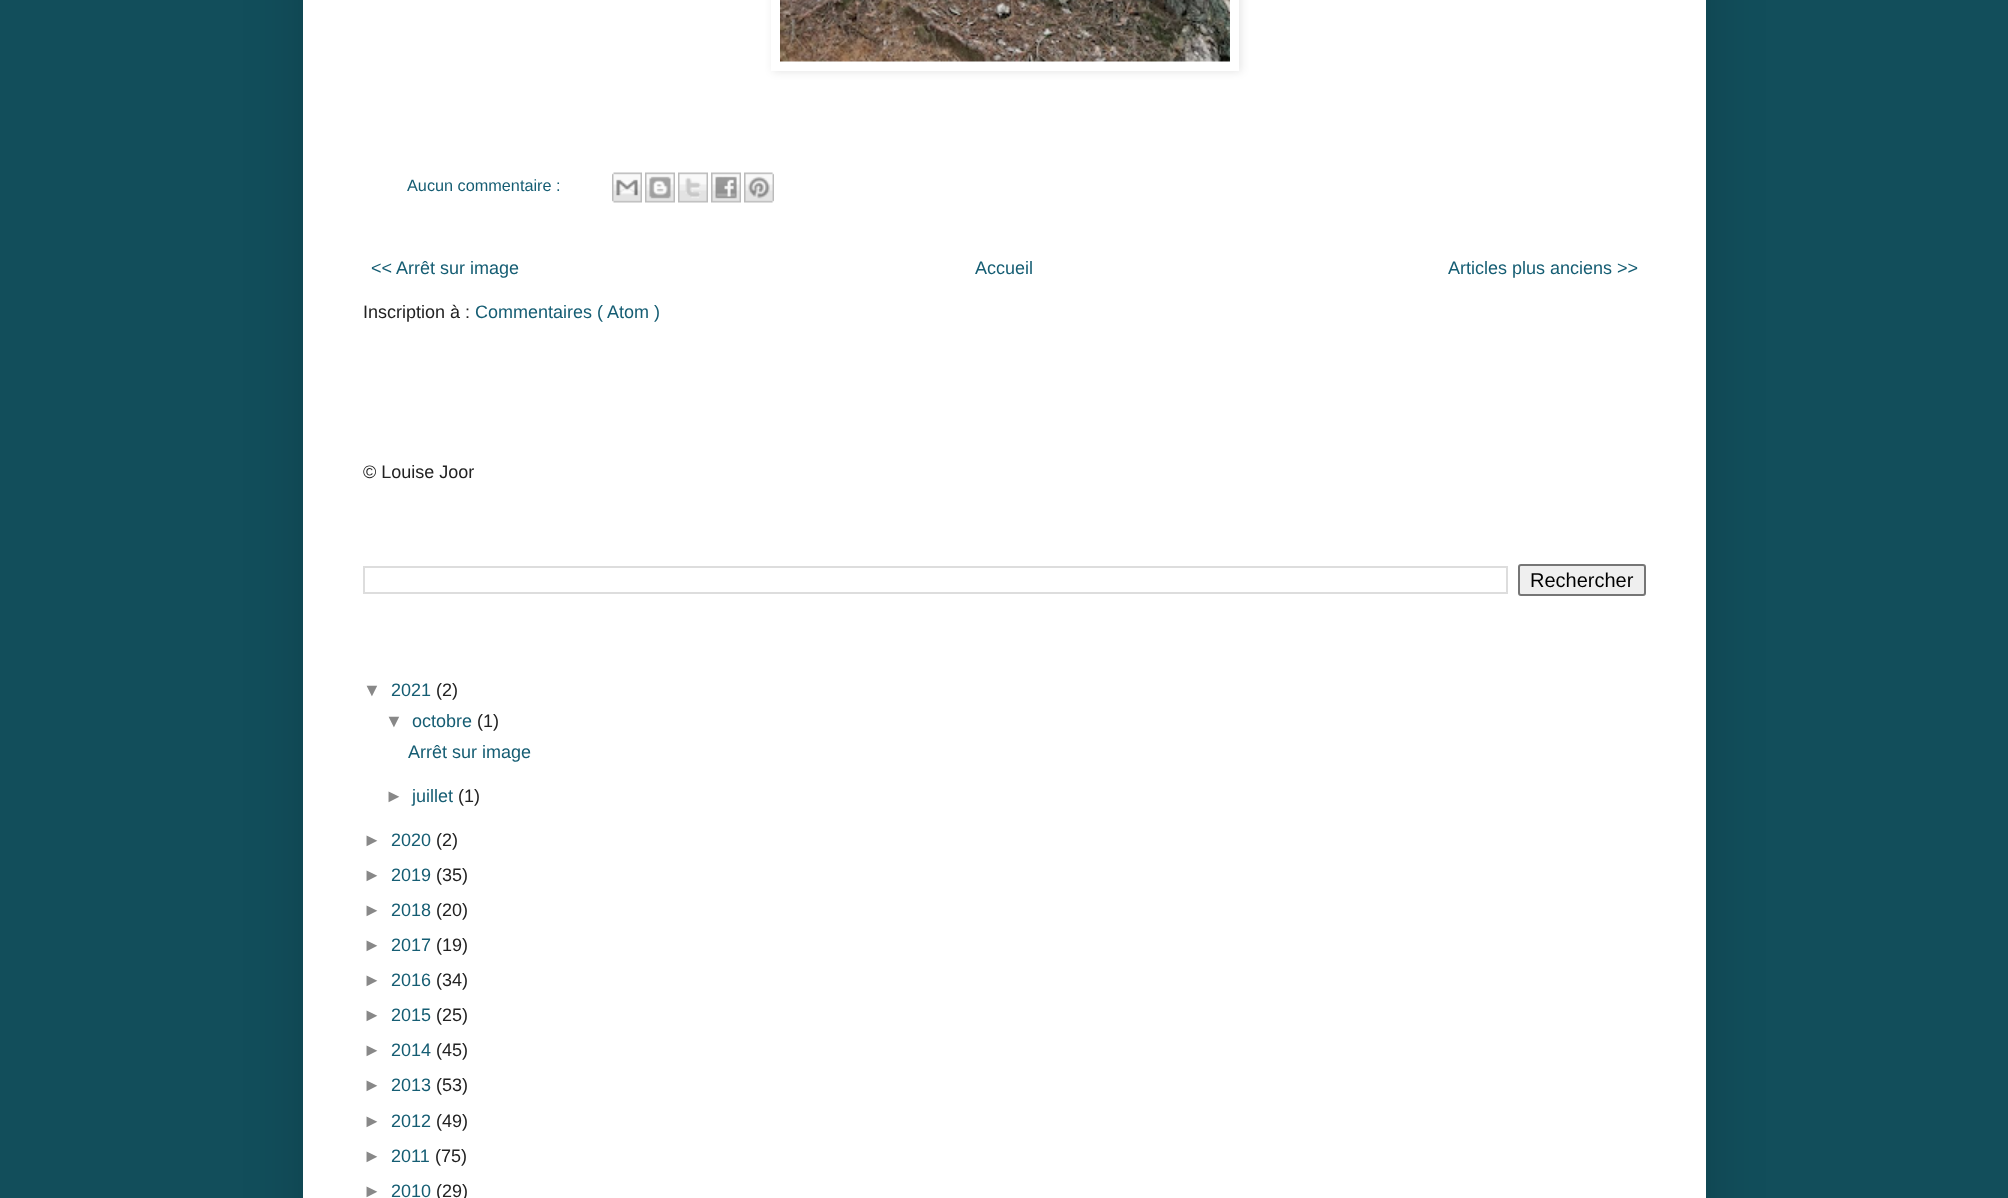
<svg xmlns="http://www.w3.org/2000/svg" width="2008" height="1198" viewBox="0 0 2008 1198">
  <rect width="100%" height="100%" fill="rgb(18,78,91)"/>
  <rect x="303" y="-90" width="1403" height="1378" fill="rgba(0,0,0,0.15)" filter="blur(30px)"/>
  <rect x="303" y="0" width="1403" height="1198" fill="rgb(255,255,255)"/>
  <rect x="773" y="-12" width="468" height="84" fill="rgba(0,0,0,0.1)" filter="blur(4px)"/>
  <rect x="771" y="0" width="468" height="71" fill="rgb(255,255,255)"/>
  <image x="780" y="0" width="450" height="62" href="pic1.png"/>
  <text x="407" y="191" font-family="Liberation Sans" font-size="16.25" fill="rgb(21,93,115)">Aucun commentaire :</text>
  <image x="612" y="172" width="30" height="31" href="pic2.png"/>
  <image x="645" y="172" width="30" height="31" href="pic3.png"/>
  <image x="678" y="172" width="30" height="31" href="pic4.png"/>
  <image x="711" y="172" width="30" height="31" href="pic5.png"/>
  <image x="744" y="172" width="30" height="31" href="pic6.png"/>
  <g font-family="Liberation Sans" font-size="18" fill="rgb(21,93,115)">
    <text x="371" y="274">&lt;&lt;</text>
    <text x="396" y="274">Arrêt sur image</text>
    <text x="975" y="274">Accueil</text>
    <text x="1448" y="274">Articles plus anciens &gt;&gt;</text>
  </g>
  <text x="363" y="318" font-family="Liberation Sans" font-size="18" fill="rgb(34,34,34)">Inscription à :</text>
  <g font-family="Liberation Sans" font-size="18" fill="rgb(21,93,115)">
    <text x="475" y="318">Commentaires (</text>
    <text x="607" y="318">Atom )</text>
  </g>
  <text x="363" y="478" font-family="Liberation Sans" font-size="18" fill="rgb(34,34,34)">© Louise Joor</text>
  <rect x="364" y="567" width="1143" height="26" fill="none" stroke="rgb(221,221,221)" stroke-width="2"/>
  <rect x="1519" y="565" width="126" height="30" rx="2" fill="rgb(239,239,239)" stroke="rgb(118,118,118)" stroke-width="2"/>
  <text x="1530" y="587" font-family="Liberation Sans" font-size="20" fill="rgb(0,0,0)">Rechercher</text>
  <text x="363" y="696" font-family="Liberation Sans" font-size="18" fill="rgb(136,136,136)">▼</text>
  <text x="391" y="696" font-family="Liberation Sans" font-size="18" fill="rgb(21,93,115)">2021</text>
  <text x="436" y="696" font-family="Liberation Sans" font-size="18" fill="rgb(34,34,34)">(2)</text>
  <text x="385" y="727" font-family="Liberation Sans" font-size="18" fill="rgb(136,136,136)">▼</text>
  <text x="412" y="727" font-family="Liberation Sans" font-size="18" fill="rgb(21,93,115)">octobre</text>
  <text x="477" y="727" font-family="Liberation Sans" font-size="18" fill="rgb(34,34,34)">(1)</text>
  <text x="408" y="758" font-family="Liberation Sans" font-size="18" fill="rgb(21,93,115)">Arrêt sur image</text>
  <text x="385" y="802" font-family="Liberation Sans" font-size="18" fill="rgb(136,136,136)">►</text>
  <text x="412" y="802" font-family="Liberation Sans" font-size="18" fill="rgb(21,93,115)">juillet</text>
  <text x="458" y="802" font-family="Liberation Sans" font-size="18" fill="rgb(34,34,34)">(1)</text>
  <text x="363" y="846" font-family="Liberation Sans" font-size="18" fill="rgb(136,136,136)">►</text>
  <text x="391" y="846" font-family="Liberation Sans" font-size="18" fill="rgb(21,93,115)">2020</text>
  <text x="436" y="846" font-family="Liberation Sans" font-size="18" fill="rgb(34,34,34)">(2)</text>
  <text x="363" y="881" font-family="Liberation Sans" font-size="18" fill="rgb(136,136,136)">►</text>
  <text x="391" y="881" font-family="Liberation Sans" font-size="18" fill="rgb(21,93,115)">2019</text>
  <text x="436" y="881" font-family="Liberation Sans" font-size="18" fill="rgb(34,34,34)">(35)</text>
  <text x="363" y="916" font-family="Liberation Sans" font-size="18" fill="rgb(136,136,136)">►</text>
  <text x="391" y="916" font-family="Liberation Sans" font-size="18" fill="rgb(21,93,115)">2018</text>
  <text x="436" y="916" font-family="Liberation Sans" font-size="18" fill="rgb(34,34,34)">(20)</text>
  <text x="363" y="951" font-family="Liberation Sans" font-size="18" fill="rgb(136,136,136)">►</text>
  <text x="391" y="951" font-family="Liberation Sans" font-size="18" fill="rgb(21,93,115)">2017</text>
  <text x="436" y="951" font-family="Liberation Sans" font-size="18" fill="rgb(34,34,34)">(19)</text>
  <text x="363" y="986" font-family="Liberation Sans" font-size="18" fill="rgb(136,136,136)">►</text>
  <text x="391" y="986" font-family="Liberation Sans" font-size="18" fill="rgb(21,93,115)">2016</text>
  <text x="436" y="986" font-family="Liberation Sans" font-size="18" fill="rgb(34,34,34)">(34)</text>
  <text x="363" y="1021" font-family="Liberation Sans" font-size="18" fill="rgb(136,136,136)">►</text>
  <text x="391" y="1021" font-family="Liberation Sans" font-size="18" fill="rgb(21,93,115)">2015</text>
  <text x="436" y="1021" font-family="Liberation Sans" font-size="18" fill="rgb(34,34,34)">(25)</text>
  <text x="363" y="1056" font-family="Liberation Sans" font-size="18" fill="rgb(136,136,136)">►</text>
  <text x="391" y="1056" font-family="Liberation Sans" font-size="18" fill="rgb(21,93,115)">2014</text>
  <text x="436" y="1056" font-family="Liberation Sans" font-size="18" fill="rgb(34,34,34)">(45)</text>
  <text x="363" y="1091" font-family="Liberation Sans" font-size="18" fill="rgb(136,136,136)">►</text>
  <text x="391" y="1091" font-family="Liberation Sans" font-size="18" fill="rgb(21,93,115)">2013</text>
  <text x="436" y="1091" font-family="Liberation Sans" font-size="18" fill="rgb(34,34,34)">(53)</text>
  <text x="363" y="1127" font-family="Liberation Sans" font-size="18" fill="rgb(136,136,136)">►</text>
  <text x="391" y="1127" font-family="Liberation Sans" font-size="18" fill="rgb(21,93,115)">2012</text>
  <text x="436" y="1127" font-family="Liberation Sans" font-size="18" fill="rgb(34,34,34)">(49)</text>
  <text x="363" y="1162" font-family="Liberation Sans" font-size="18" fill="rgb(136,136,136)">►</text>
  <text x="391" y="1162" font-family="Liberation Sans" font-size="18" fill="rgb(21,93,115)">2011</text>
  <text x="435" y="1162" font-family="Liberation Sans" font-size="18" fill="rgb(34,34,34)">(75)</text>
  <text x="363" y="1197" font-family="Liberation Sans" font-size="18" fill="rgb(136,136,136)">►</text>
  <text x="391" y="1197" font-family="Liberation Sans" font-size="18" fill="rgb(21,93,115)">2010</text>
  <text x="436" y="1197" font-family="Liberation Sans" font-size="18" fill="rgb(34,34,34)">(29)</text>
</svg>
